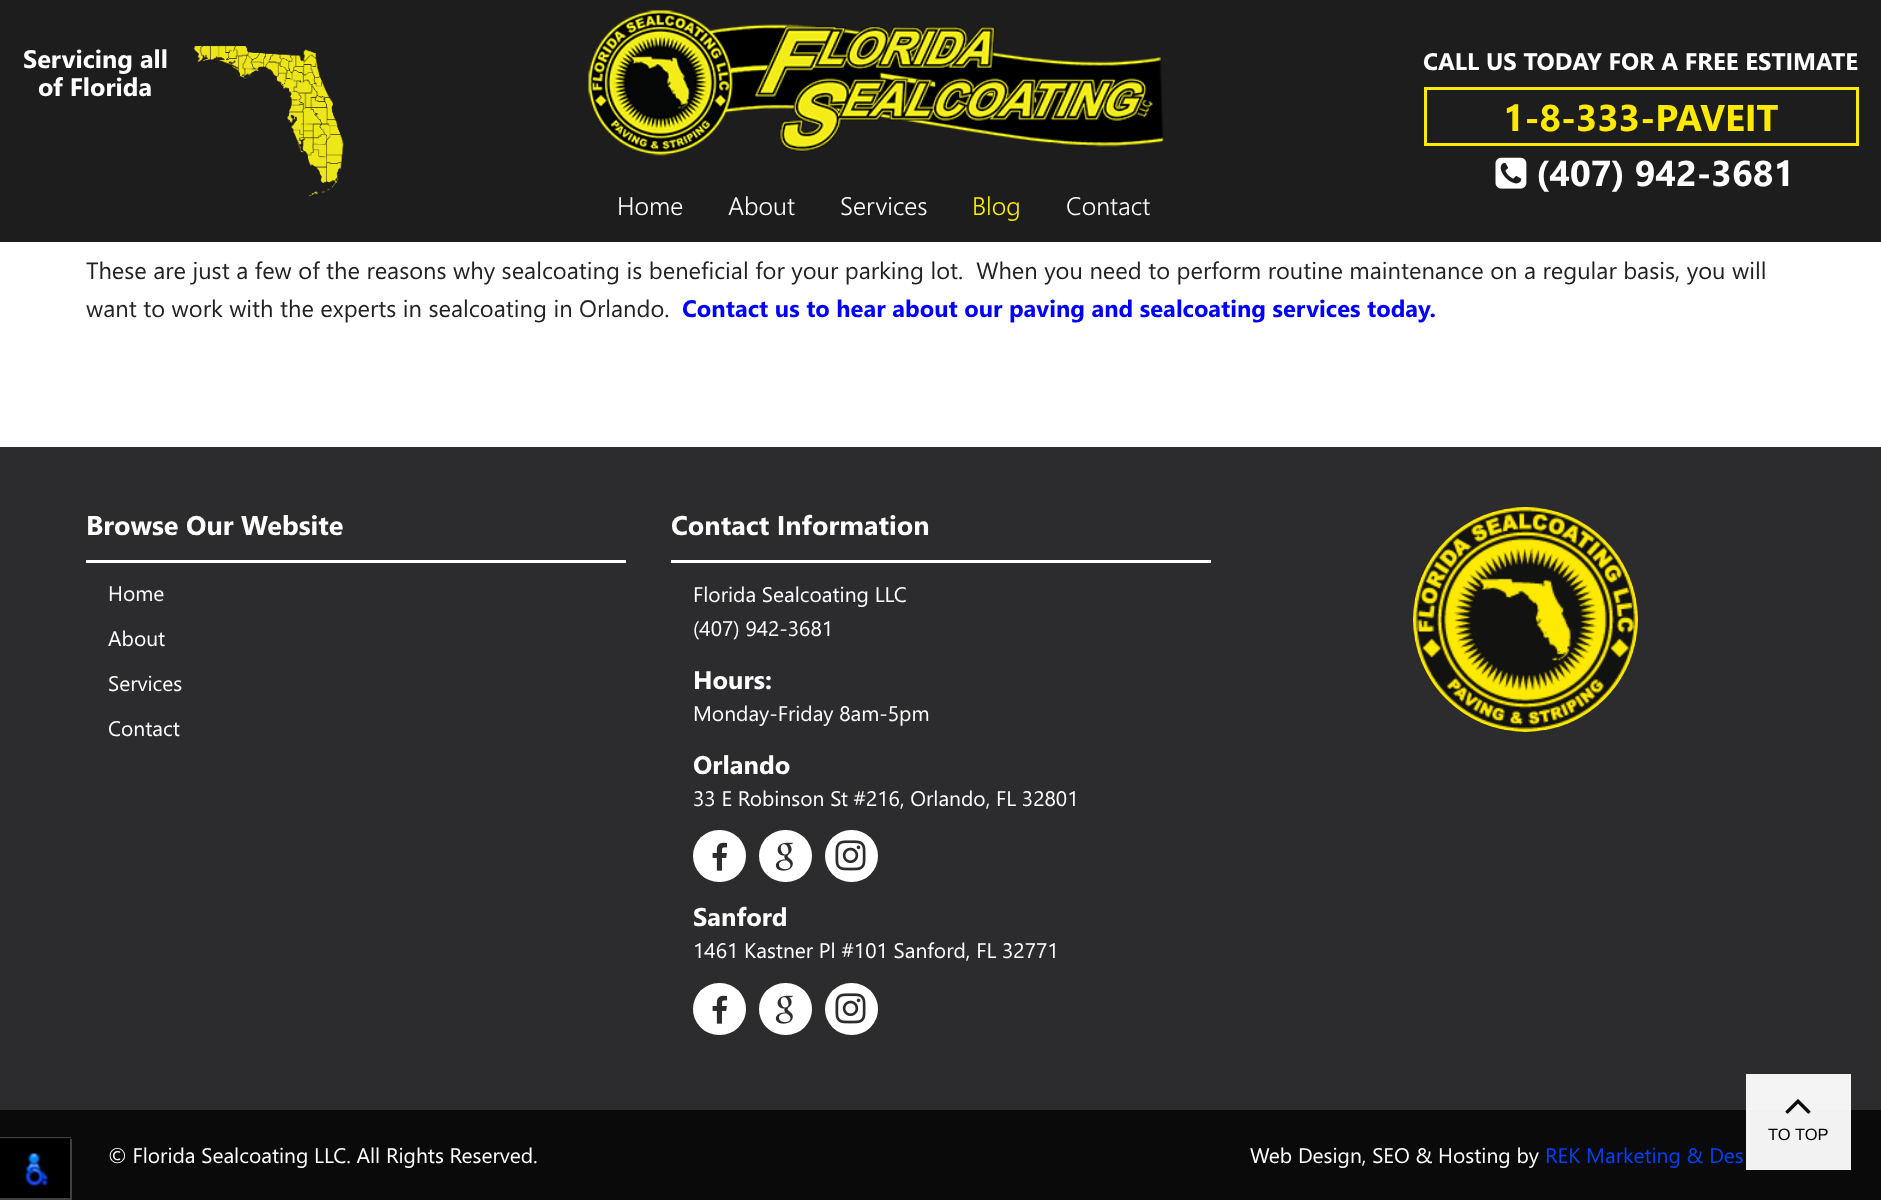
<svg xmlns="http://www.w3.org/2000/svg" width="1881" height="1200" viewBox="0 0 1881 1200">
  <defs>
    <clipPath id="clip1"><rect x="0" y="1139" width="72" height="61"/></clipPath>
  </defs>
  <rect width="100%" height="100%" fill="rgb(255,255,255)"/>
  <rect x="0" y="0" width="1881" height="242" fill="rgb(29,29,30)"/>
  <g font-family="Segoe UI" font-size="25.25" font-weight="bold" fill="rgb(255,255,255)">
    <text x="23" y="68">Servicing all</text>
    <text x="38" y="96">of Florida</text>
  </g>
  <image x="193" y="45" width="151" height="152" href="pic1.png"/>
  <text x="1423" y="70" font-family="Segoe UI" font-size="24" font-weight="bold" fill="rgb(255,255,255)">CALL US TODAY FOR A FREE ESTIMATE</text>
  <rect x="1425.5" y="88.5" width="432" height="56" fill="none" stroke="rgb(254,233,0)" stroke-width="3"/>
  <text x="1503" y="131" font-family="Segoe UI" font-size="37.25" font-weight="bold" fill="rgb(254,233,0)">1-8-333-PAVEIT</text>
  <image x="1495" y="157" width="32" height="32" href="pic2.png"/>
  <text x="1536" y="186" font-family="Segoe UI" font-size="36" font-weight="bold" fill="rgb(255,255,255)">(407) 942-3681</text>
  <image x="588" y="10" width="576" height="146" href="pic3.png"/>
  <g font-family="Segoe UI" font-size="25.25" font-weight="300" fill="rgb(255,255,255)">
    <text x="617" y="215">Home</text>
    <text x="728" y="215">About</text>
    <text x="840" y="215">Services</text>
  </g>
  <text x="972" y="215" font-family="Segoe UI" font-size="25.25" font-weight="300" fill="rgb(254,233,0)">Blog</text>
  <text x="1066" y="215" font-family="Segoe UI" font-size="25.25" font-weight="300" fill="rgb(255,255,255)">Contact</text>
  <g font-family="Segoe UI" font-size="23.73" fill="rgb(34,34,34)">
    <text xml:space="preserve"><tspan x="86" y="279">These are just a few of the reasons why sealcoating is beneficial for your parking lot.  When you need to perform routine maintenance on a regular basis, you will</tspan><tspan x="86" y="317">want to work with the experts in sealcoating in Orlando.</tspan></text>
  </g>
  <text x="682" y="317" font-family="Segoe UI" font-size="23.73" font-weight="bold" fill="rgb(0,0,255)">Contact us to hear about our paving and sealcoating services today.</text>
  <rect x="0" y="1110" width="1881" height="90" fill="rgb(10,10,11)"/>
  <path d="M-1 1137V1199H0V1138H71V1137Z" fill="rgb(64,64,64)"/>
  <rect x="0" y="1139" width="70" height="59" fill="rgb(0,0,0)"/>
  <g clip-path="url(#clip1)">
    <path d="M-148 990H220V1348H-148ZM-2 1137H70V1198H-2Z" fill="rgb(64,64,64)" fill-rule="evenodd"/>
  </g>
  <image x="25" y="1153" width="24" height="33" href="pic4.png"/>
  <rect x="0" y="447" width="1881" height="663" fill="rgb(44,44,46)"/>
  <rect x="86" y="560" width="540" height="3" fill="rgb(255,255,255)"/>
  <text x="86" y="535" font-family="Segoe UI" font-size="27" font-weight="bold" fill="rgb(255,255,255)">Browse Our Website</text>
  <g font-family="Segoe UI" font-size="21" fill="rgb(255,255,255)">
    <text x="108" y="601">Home</text>
    <text x="108" y="646">About</text>
    <text x="108" y="691">Services</text>
    <text x="108" y="736">Contact</text>
  </g>
  <rect x="671" y="560" width="540" height="3" fill="rgb(255,255,255)"/>
  <text x="671" y="535" font-family="Segoe UI" font-size="27" font-weight="bold" fill="rgb(255,255,255)">Contact Information</text>
  <g font-family="Segoe UI" font-size="21" fill="rgb(255,255,255)">
    <text>
      <tspan x="693" y="602">Florida Sealcoating LLC</tspan>
      <tspan x="693" y="636">(407) 942-3681</tspan>
    </text>
  </g>
  <text x="693" y="689" font-family="Segoe UI" font-size="25.5" font-weight="bold" fill="rgb(255,255,255)">Hours:</text>
  <text x="693" y="721" font-family="Segoe UI" font-size="21" fill="rgb(255,255,255)">Monday-Friday 8am-5pm</text>
  <text x="693" y="774" font-family="Segoe UI" font-size="25.5" font-weight="bold" fill="rgb(255,255,255)">Orlando</text>
  <text x="693" y="806" font-family="Segoe UI" font-size="21" fill="rgb(255,255,255)">33 E Robinson St #216, Orlando, FL 32801</text>
  <rect x="693" y="830" width="53" height="52" rx="26" fill="rgb(255,255,255)"/>
  <image x="712" y="842" width="16" height="29" href="pic5.png"/>
  <rect x="759" y="830" width="53" height="52" rx="26" fill="rgb(255,255,255)"/>
  <image x="775" y="842" width="19" height="29" href="pic6.png"/>
  <rect x="825" y="830" width="53" height="52" rx="26" fill="rgb(255,255,255)"/>
  <image x="835" y="840" width="31" height="31" href="pic7.png"/>
  <text x="693" y="926" font-family="Segoe UI" font-size="25.5" font-weight="bold" fill="rgb(255,255,255)">Sanford</text>
  <text x="693" y="958" font-family="Segoe UI" font-size="21" fill="rgb(255,255,255)">1461 Kastner Pl #101 Sanford, FL 32771</text>
  <rect x="693" y="983" width="53" height="52" rx="26" fill="rgb(255,255,255)"/>
  <image x="712" y="995" width="16" height="29" href="pic5.png"/>
  <rect x="759" y="983" width="53" height="52" rx="26" fill="rgb(255,255,255)"/>
  <image x="775" y="995" width="19" height="29" href="pic6.png"/>
  <rect x="825" y="983" width="53" height="52" rx="26" fill="rgb(255,255,255)"/>
  <image x="835" y="993" width="31" height="31" href="pic7.png"/>
  <circle cx="1525.5" cy="619.5" r="112.5" fill="rgb(18,18,16)"/>
  <image x="1413" y="507" width="225" height="225" href="pic8.png"/>
  <rect x="1746" y="1074" width="105" height="96" fill="rgba(255,255,255,0.95)"/>
  <image x="1785" y="1099" width="26" height="15" href="pic9.png"/>
  <text x="1768" y="1140" font-family="Liberation Sans" font-size="16.5" fill="rgb(1,1,1)">TO TOP</text>
  <g font-family="Segoe UI" font-size="21" fill="rgb(255,255,255)">
    <text x="108" y="1163">© Florida Sealcoating LLC. All Rights Reserved.</text>
    <text x="1250" y="1163">Web Design, SEO &amp; Hosting by</text>
  </g>
  <text x="1545" y="1163" font-family="Segoe UI" font-size="21" fill="rgb(0,66,244)">REK Marketing &amp; Des</text>
</svg>
